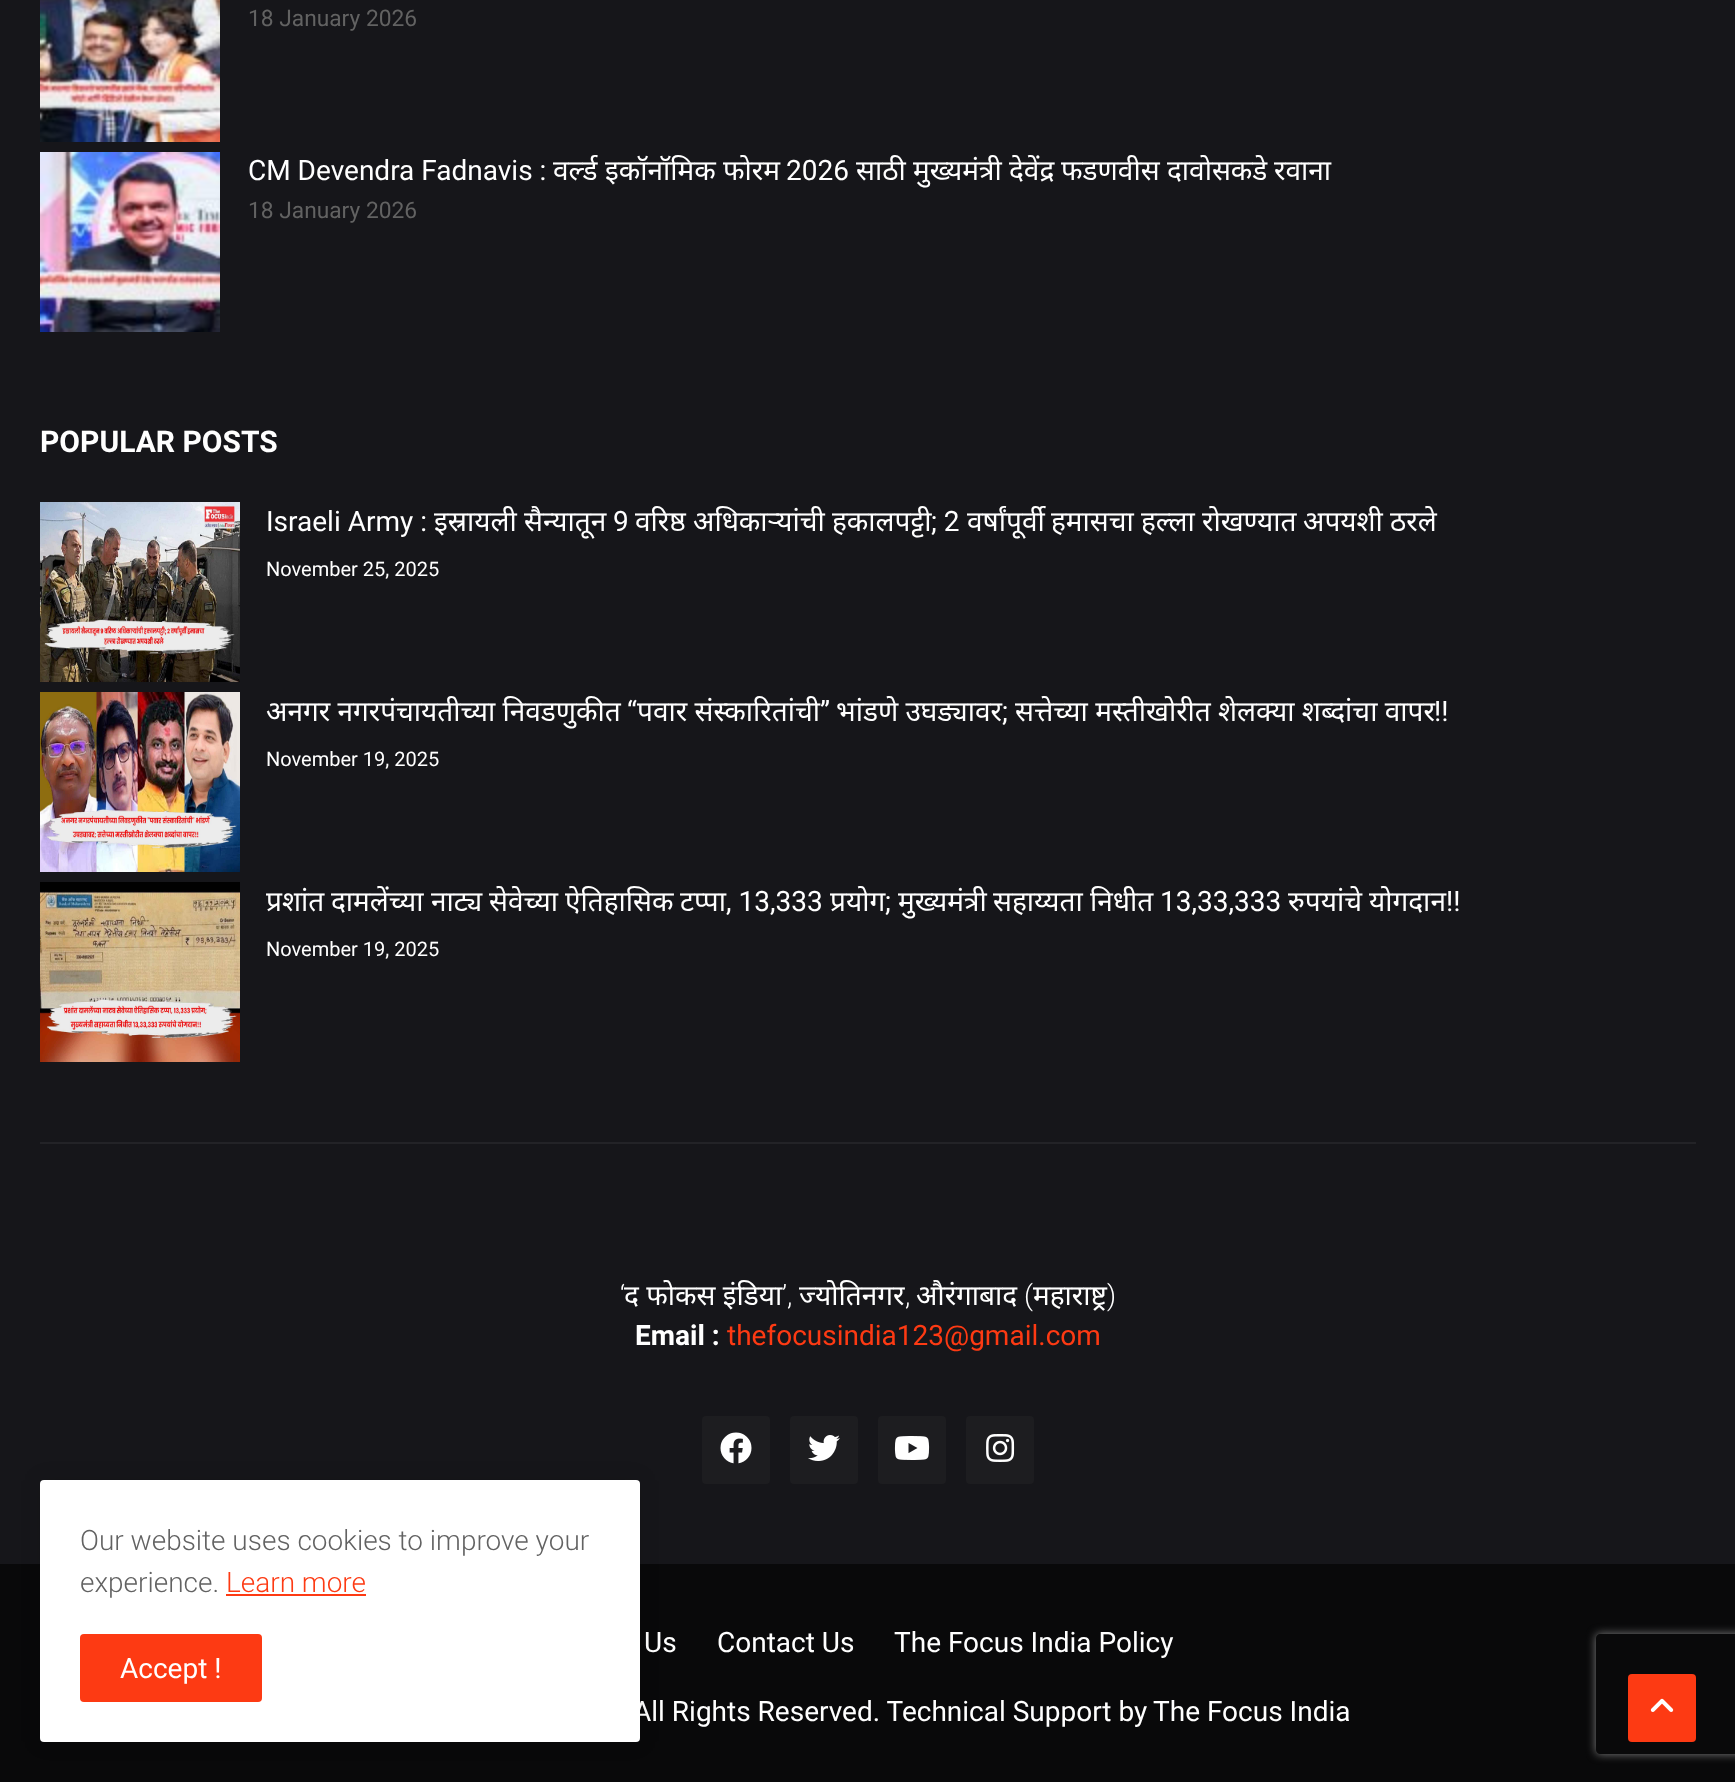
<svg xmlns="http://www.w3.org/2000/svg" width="1735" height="1782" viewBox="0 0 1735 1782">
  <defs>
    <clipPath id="clip1"><path d="M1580 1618H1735V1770H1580ZM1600 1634H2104C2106 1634 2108 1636 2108 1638V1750C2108 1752 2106 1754 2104 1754H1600C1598 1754 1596 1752 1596 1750V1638C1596 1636 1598 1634 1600 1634Z" clip-rule="evenodd"/></clipPath>
  </defs>
  <rect width="100%" height="100%" fill="rgb(22,22,26)"/>
  <rect x="40" y="1142" width="1656" height="2" fill="rgb(35,35,39)"/>
  <image x="40" y="0" width="180" height="142" href="pic1.png"/>
  <text x="248" y="26" font-family="Roboto" font-size="22.75" fill="rgb(98,98,98)">18 January 2026</text>
  <image x="40" y="152" width="180" height="180" href="pic2.png"/>
  <text x="248" y="180" font-family="Roboto" font-size="28" fill="rgb(255,255,255)">CM Devendra Fadnavis :</text>
  <g font-family="Noto Sans" font-size="28" fill="rgb(255,255,255)">
    <text x="553" y="180">वर्ल्ड</text>
    <text x="605" y="180">इकॉनॉमिक</text>
    <text x="723" y="180">फोरम</text>
  </g>
  <text x="786" y="180" font-family="Roboto" font-size="28" fill="rgb(255,255,255)">2026</text>
  <g font-family="Noto Sans" font-size="28" fill="rgb(255,255,255)">
    <text x="856" y="180">साठी</text>
    <text x="913" y="180">मुख्यमंत्री</text>
    <text x="1009" y="180">देवेंद्र</text>
    <text x="1061" y="180">फडणवीस</text>
    <text x="1167" y="180">दावोसकडे</text>
    <text x="1274" y="180">रवाना</text>
  </g>
  <text x="248" y="218" font-family="Roboto" font-size="22.75" fill="rgb(98,98,98)">18 January 2026</text>
  <text x="40" y="452" font-family="Roboto" font-size="30" font-weight="bold" fill="rgb(255,255,255)">POPULAR POSTS</text>
  <image x="40" y="502" width="200" height="180" href="pic3.png"/>
  <text x="266" y="531" font-family="Roboto" font-size="28" fill="rgb(255,255,255)">Israeli Army :</text>
  <g font-family="Noto Sans" font-size="28" fill="rgb(255,255,255)">
    <text x="434" y="531">इस्रायली</text>
    <text x="524" y="531">सैन्यातून</text>
  </g>
  <text x="613" y="531" font-family="Roboto" font-size="28" fill="rgb(255,255,255)">9</text>
  <g font-family="Noto Sans" font-size="28" fill="rgb(255,255,255)">
    <text x="635" y="531">वरिष्ठ</text>
    <text x="693" y="531">अधिकाऱ्यांची</text>
    <text x="832" y="531">हकालपट्टी</text>
  </g>
  <text x="931" y="531" font-family="Roboto" font-size="28" fill="rgb(255,255,255)">; 2</text>
  <g font-family="Noto Sans" font-size="28" fill="rgb(255,255,255)">
    <text x="967" y="531">वर्षांपूर्वी</text>
    <text x="1051" y="531">हमासचा</text>
    <text x="1141" y="531">हल्ला</text>
    <text x="1202" y="531">रोखण्यात</text>
    <text x="1303" y="531">अपयशी</text>
    <text x="1390" y="531">ठरले</text>
  </g>
  <text x="266" y="576" font-family="Roboto" font-size="20" fill="rgb(255,255,255)">November 25, 2025</text>
  <image x="40" y="692" width="200" height="180" href="pic4.png"/>
  <text x="266" y="721" font-family="Noto Sans" font-size="28" fill="rgb(255,255,255)">अनगर नगरपंचायतीच्या निवडणुकीत</text>
  <text x="627" y="721" font-family="Roboto" font-size="28" fill="rgb(255,255,255)">“</text>
  <text x="637" y="721" font-family="Noto Sans" font-size="28" fill="rgb(255,255,255)">पवार संस्कारितांची</text>
  <text x="820" y="721" font-family="Roboto" font-size="28" fill="rgb(255,255,255)">”</text>
  <text x="836" y="721" font-family="Noto Sans" font-size="28" fill="rgb(255,255,255)">भांडणे उघड्यावर</text>
  <text x="1002" y="721" font-family="Roboto" font-size="28" fill="rgb(255,255,255)">;</text>
  <text x="1015" y="721" font-family="Noto Sans" font-size="28" fill="rgb(255,255,255)">सत्तेच्या मस्तीखोरीत शेलक्या शब्दांचा वापर</text>
  <text x="1434" y="721" font-family="Roboto" font-size="28" fill="rgb(255,255,255)">!!</text>
  <text x="266" y="766" font-family="Roboto" font-size="20" fill="rgb(255,255,255)">November 19, 2025</text>
  <image x="40" y="882" width="200" height="180" href="pic5.png"/>
  <g font-family="Noto Sans" font-size="28" fill="rgb(255,255,255)">
    <text x="266" y="911">प्रशांत</text>
    <text x="331" y="911">दामलेंच्या</text>
    <text x="431" y="911">नाट्य</text>
    <text x="489" y="911">सेवेच्या</text>
    <text x="565" y="911">ऐतिहासिक</text>
    <text x="680" y="911">टप्पा</text>
  </g>
  <text x="726" y="911" font-family="Roboto" font-size="28" fill="rgb(255,255,255)">, 13,333</text>
  <text x="830" y="911" font-family="Noto Sans" font-size="28" fill="rgb(255,255,255)">प्रयोग</text>
  <text x="885" y="911" font-family="Roboto" font-size="28" fill="rgb(255,255,255)">;</text>
  <g font-family="Noto Sans" font-size="28" fill="rgb(255,255,255)">
    <text x="898" y="911">मुख्यमंत्री</text>
    <text x="993" y="911">सहाय्यता</text>
    <text x="1090" y="911">निधीत</text>
  </g>
  <text x="1160" y="911" font-family="Roboto" font-size="28" fill="rgb(255,255,255)">13,33,333</text>
  <g font-family="Noto Sans" font-size="28" fill="rgb(255,255,255)">
    <text x="1288" y="911">रुपयांचे</text>
    <text x="1369" y="911">योगदान</text>
  </g>
  <text x="1446" y="911" font-family="Roboto" font-size="28" fill="rgb(255,255,255)">!!</text>
  <text x="266" y="956" font-family="Roboto" font-size="20" fill="rgb(255,255,255)">November 19, 2025</text>
  <text x="620" y="1305" font-family="Roboto" font-size="28" font-weight="300" fill="rgb(255,255,255)">‘</text>
  <text x="624" y="1305" font-family="Noto Sans" font-size="28" fill="rgb(255,255,255)">द फोकस इंडिया</text>
  <text x="782" y="1305" font-family="Roboto" font-size="28" font-weight="300" fill="rgb(255,255,255)">’,</text>
  <text x="799" y="1305" font-family="Noto Sans" font-size="28" fill="rgb(255,255,255)">ज्योतिनगर</text>
  <text x="905" y="1305" font-family="Roboto" font-size="28" font-weight="300" fill="rgb(255,255,255)">,</text>
  <text x="916" y="1305" font-family="Noto Sans" font-size="28" fill="rgb(255,255,255)">औरंगाबाद</text>
  <text x="1024" y="1305" font-family="Roboto" font-size="28" font-weight="300" fill="rgb(255,255,255)">(</text>
  <text x="1033" y="1305" font-family="Noto Sans" font-size="28" fill="rgb(255,255,255)">महाराष्ट्र</text>
  <text x="1107" y="1305" font-family="Roboto" font-size="28" font-weight="300" fill="rgb(255,255,255)">)</text>
  <text x="635" y="1345" font-family="Roboto" font-size="28" font-weight="bold" fill="rgb(255,255,255)">Email :</text>
  <text x="727" y="1345" font-family="Roboto" font-size="28" fill="rgb(253,58,19)">thefocusindia123@gmail.com</text>
  <rect x="702" y="1416" width="68" height="68" rx="4" fill="rgb(29,29,32)"/>
  <image x="720" y="1432" width="32" height="32" href="pic6.png"/>
  <rect x="790" y="1416" width="68" height="68" rx="4" fill="rgb(29,29,32)"/>
  <image x="808" y="1435" width="32" height="26" href="pic7.png"/>
  <rect x="878" y="1416" width="68" height="68" rx="4" fill="rgb(29,29,32)"/>
  <image x="894" y="1436" width="36" height="24" href="pic8.png"/>
  <rect x="966" y="1416" width="68" height="68" rx="4" fill="rgb(29,29,32)"/>
  <image x="986" y="1434" width="29" height="28" href="pic9.png"/>
  <rect x="0" y="1564" width="1735" height="218" fill="rgb(9,9,10)"/>
  <g font-family="Roboto" font-size="28" fill="rgb(255,255,255)">
    <text x="644" y="1652">Us</text>
    <text x="717" y="1652">Contact Us</text>
    <text x="894" y="1652">The Focus India Policy</text>
    <text x="633" y="1721">All Rights Reserved. Technical Support by</text>
    <text x="1153" y="1721">The Focus India</text>
  </g>
  <rect x="40" y="1480" width="600" height="262" rx="4" fill="rgba(0,0,0,0.1)" filter="blur(10px)"/>
  <rect x="40" y="1480" width="600" height="262" rx="4" fill="rgb(255,255,255)"/>
  <g font-family="Roboto" font-size="28" font-weight="300" fill="rgb(98,98,98)">
    <text>
      <tspan x="80" y="1550">Our website uses cookies to improve your</tspan>
      <tspan x="80" y="1592">experience.</tspan>
    </text>
  </g>
  <text x="226" y="1592" font-family="Roboto" font-size="28" font-weight="300" fill="rgb(253,58,19)">Learn more</text>
  <rect x="226" y="1594" width="140" height="2" fill="rgb(253,58,19)"/>
  <rect x="80" y="1634" width="182" height="68" rx="4" fill="rgb(253,58,19)"/>
  <text x="120" y="1678" font-family="Roboto" font-size="28" fill="rgb(255,255,255)">Accept !</text>
  <g clip-path="url(#clip1)">
    <rect x="1596" y="1634" width="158" height="120" rx="4" fill="rgb(128,128,128)" filter="blur(5px)"/>
  </g>
  <rect x="1628" y="1674" width="68" height="68" rx="4" fill="rgb(253,58,19)"/>
  <image x="1650" y="1698" width="24" height="14" href="pic10.png"/>
</svg>
